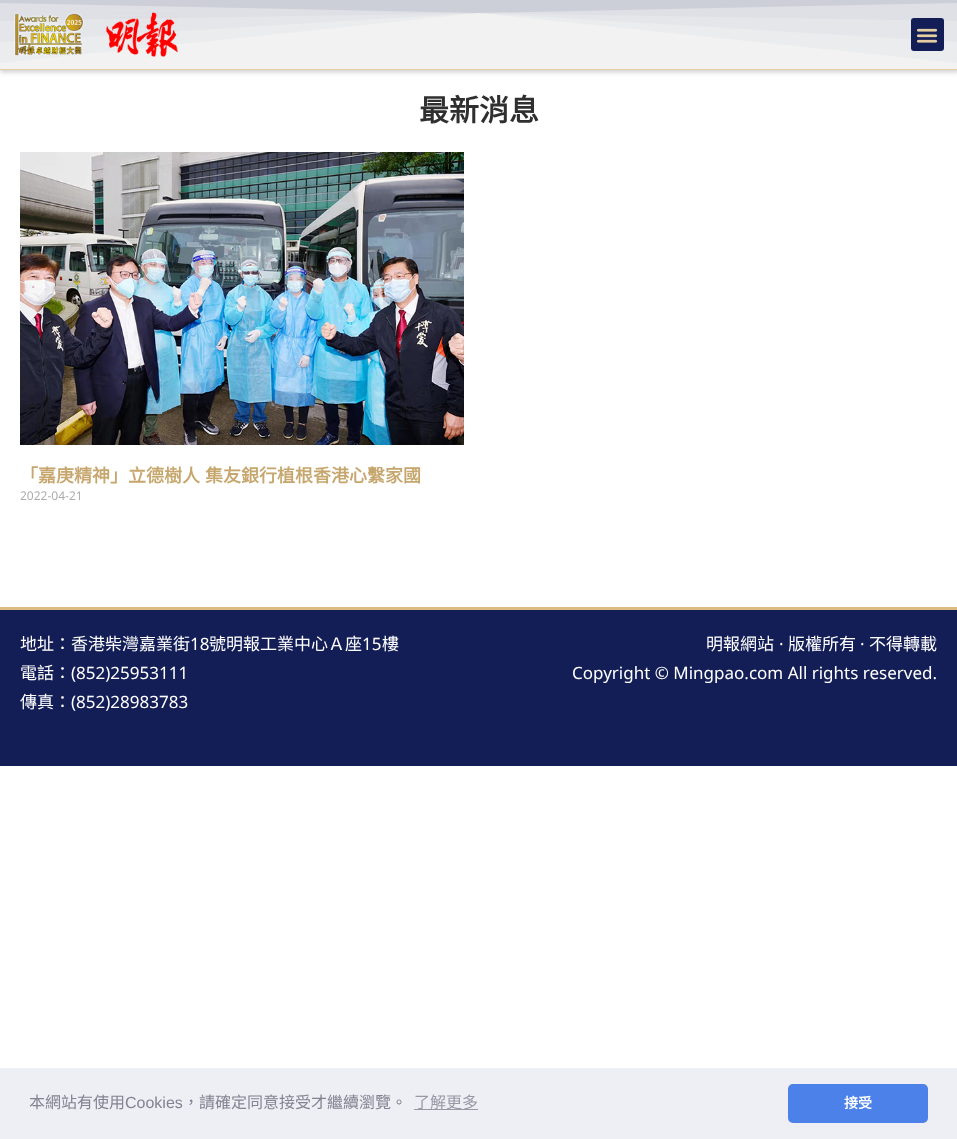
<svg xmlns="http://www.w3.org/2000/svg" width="957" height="1139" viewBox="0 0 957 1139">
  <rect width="100%" height="100%" fill="rgb(255,255,255)"/>
  <rect x="0" y="0" width="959" height="72" fill="rgba(0,0,0,0.2)" filter="blur(2.5px)"/>
  <rect x="0" y="13" width="957" height="56" fill="rgb(242,242,242)"/>
  <rect x="0" y="69" width="957" height="1" fill="rgb(230,206,163)"/>
  <path d="M0-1V63L479 13L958 63V-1Z" fill="rgb(235,236,237)"/>
  <path d="M0-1V42L479 13L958 42V-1Z" fill="rgb(229,230,233)"/>
  <path d="M0-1V21L479 13L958 21V-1Z" fill="rgb(223,224,229)"/>
  <path d="M0-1V3L479 13L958 3V-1Z" fill="rgb(205,207,216)"/>
  <image x="14" y="12" width="70" height="44" href="pic1.png"/>
  <image x="106" y="12" width="72" height="45" href="pic2.png"/>
  <rect x="911" y="18" width="33" height="33" rx="3" fill="rgb(19,30,86)"/>
  <image x="916" y="28" width="22" height="15" href="pic3.png"/>
  <text x="419" y="121" font-family="Noto Sans CJK TC" font-size="30" font-weight="bold" fill="rgb(47,47,47)">最新消息</text>
  <image x="20" y="152" width="444" height="293" href="pic4.png"/>
  <text x="20" y="482" word-spacing="1" font-family="Noto Sans CJK TC" font-size="18" font-weight="bold" fill="rgb(198,166,108)">「嘉庚精神」立德樹人 集友銀行植根香港心繫家國</text>
  <text x="20" y="500" font-family="Noto Sans" font-size="12" fill="rgb(173,173,173)">2022-04-21</text>
  <rect x="0" y="610" width="957" height="156" fill="rgb(19,30,86)"/>
  <rect x="0" y="607" width="957" height="3" fill="rgb(221,188,129)"/>
  <text x="20" y="650" font-family="Noto Sans CJK TC" font-size="17" fill="rgb(255,255,255)">地址：香港柴灣嘉業街</text>
  <text x="190" y="650" font-family="Noto Sans" font-size="17" fill="rgb(255,255,255)">18</text>
  <text x="209" y="650" font-family="Noto Sans CJK TC" font-size="17" fill="rgb(255,255,255)">號明報工業中心Ａ座</text>
  <text x="362" y="650" font-family="Noto Sans" font-size="17" fill="rgb(255,255,255)">15</text>
  <g font-family="Noto Sans CJK TC" font-size="17" fill="rgb(255,255,255)">
    <text x="382" y="650">樓</text>
    <text x="20" y="679">電話：</text>
  </g>
  <text x="71" y="679" font-family="Noto Sans" font-size="17" fill="rgb(255,255,255)">(852)25953111</text>
  <text x="20" y="708" font-family="Noto Sans CJK TC" font-size="17" fill="rgb(255,255,255)">傳真：</text>
  <text x="71" y="708" font-family="Noto Sans" font-size="17" fill="rgb(255,255,255)">(852)28983783</text>
  <text x="706" y="650" font-family="Noto Sans CJK TC" font-size="17" fill="rgb(255,255,255)">明報網站</text>
  <text x="779" y="650" font-family="Noto Sans" font-size="17" fill="rgb(255,255,255)">·</text>
  <text x="788" y="650" font-family="Noto Sans CJK TC" font-size="17" fill="rgb(255,255,255)">版權所有</text>
  <text x="860" y="650" font-family="Noto Sans" font-size="17" fill="rgb(255,255,255)">·</text>
  <text x="869" y="650" font-family="Noto Sans CJK TC" font-size="17" fill="rgb(255,255,255)">不得轉載</text>
  <text x="572" y="679" font-family="Noto Sans" font-size="17" fill="rgb(255,255,255)">Copyright © Mingpao.com All rights reserved.</text>
  <rect x="0" y="1068" width="957" height="71" fill="rgb(237,239,245)"/>
  <text x="29" y="1108" font-family="Noto Sans CJK TC" font-size="16" fill="rgb(131,131,145)">本網站有使用</text>
  <text x="125" y="1108" font-family="Liberation Sans" font-size="16" fill="rgb(131,131,145)">Cookies</text>
  <text x="183" y="1108" font-family="Noto Sans CJK TC" font-size="16" fill="rgb(131,131,145)">，請確定同意接受才繼續瀏覽。</text>
  <rect x="414" y="1109" width="64" height="1" fill="rgb(152,153,165)"/>
  <text x="414" y="1108" font-family="Noto Sans CJK TC" font-size="16" fill="rgb(152,153,165)">了解更多</text>
  <rect x="788" y="1084" width="140" height="39" rx="5" fill="rgb(75,129,232)"/>
  <text x="844" y="1108" font-family="Noto Sans CJK TC" font-size="14" font-weight="bold" fill="rgb(255,255,255)">接受</text>
</svg>
